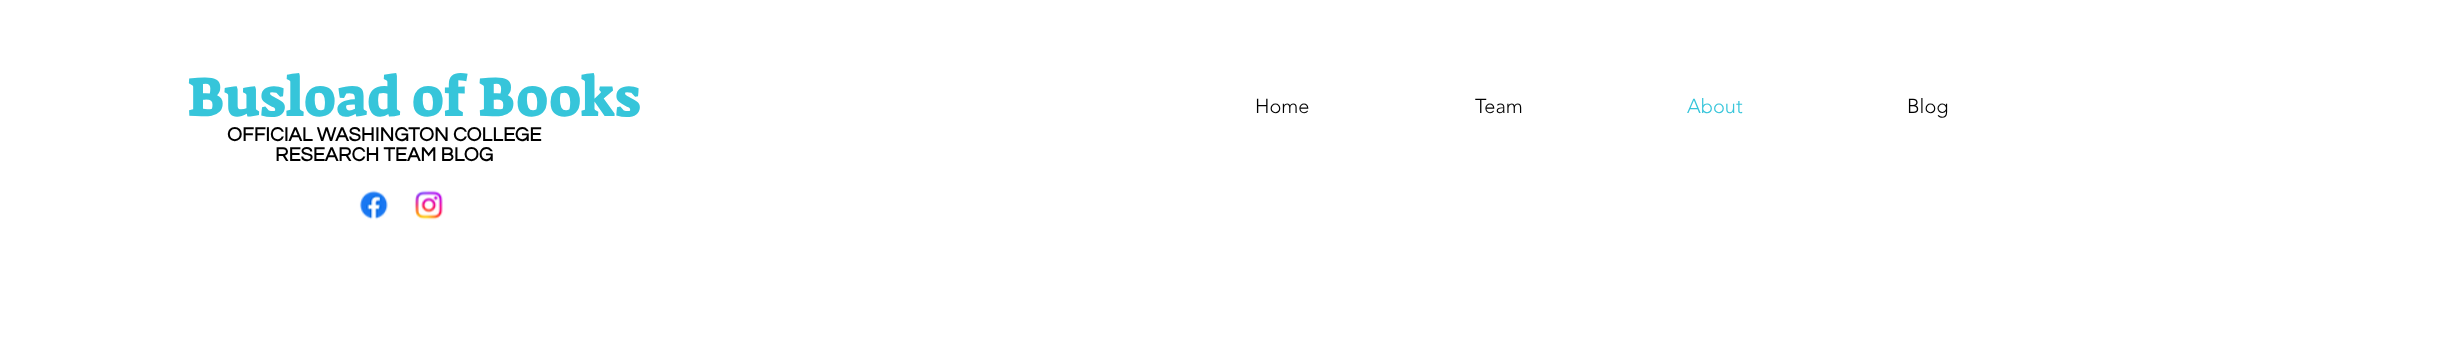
<svg xmlns="http://www.w3.org/2000/svg" width="2463" height="347" viewBox="0 0 2463 347">
  <rect width="100%" height="100%" fill="rgb(255,255,255)"/>
  <text x="187" y="116" font-family="Suez One" font-size="56.25" fill="rgb(54,197,218)">Busload of Books</text>
  <g font-family="Questrial" font-size="20" font-weight="bold" fill="rgb(0,0,0)">
    <text x="227" y="141">OFFICIAL WASHINGTON COLLEGE</text>
    <text x="275" y="161">RESEARCH TEAM BLOG</text>
  </g>
  <image x="359" y="190" width="29" height="30" href="pic1.png"/>
  <image x="414" y="190" width="29" height="30" href="pic2.png"/>
  <g font-family="'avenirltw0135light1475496'" font-size="20" font-weight="300" fill="rgb(0,0,0)">
    <text x="1255" y="113">Home</text>
    <text x="1475" y="113">Team</text>
  </g>
  <text x="1687" y="113" font-family="'avenirltw0135light1475496'" font-size="20" font-weight="300" fill="rgb(54,197,218)">About</text>
  <text x="1907" y="113" font-family="'avenirltw0135light1475496'" font-size="20" font-weight="300" fill="rgb(0,0,0)">Blog</text>
</svg>
